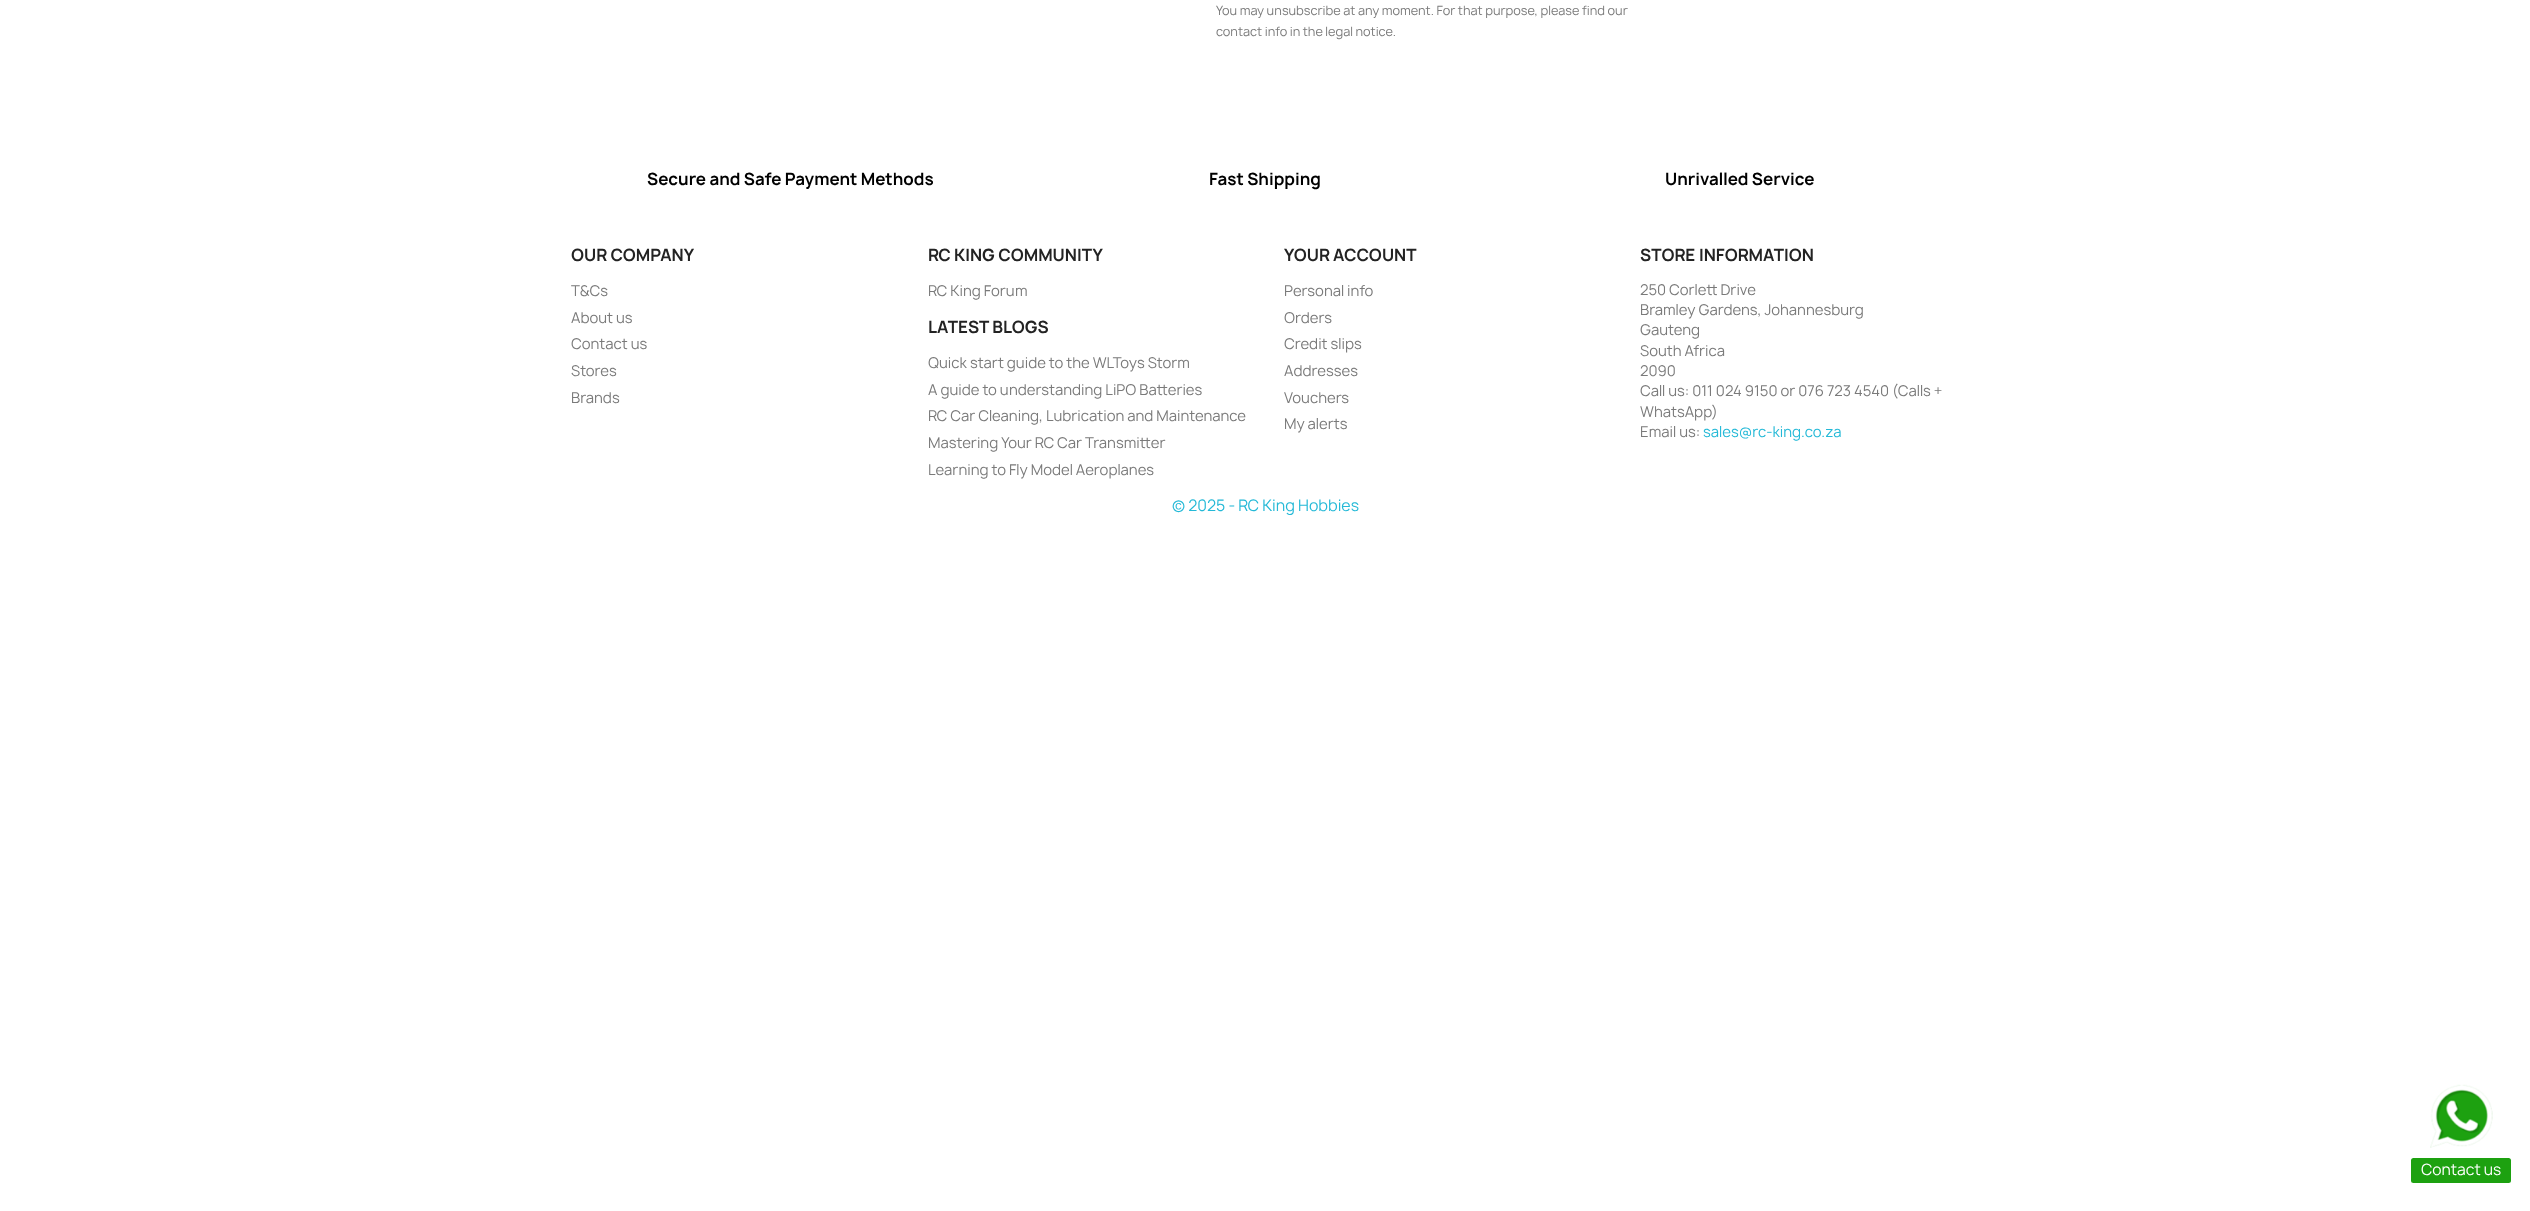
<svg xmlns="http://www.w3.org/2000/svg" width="2530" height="1211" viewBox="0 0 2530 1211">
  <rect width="100%" height="100%" fill="rgb(255,255,255)"/>
  <g font-family="Manrope" font-size="12.2" fill="rgb(122,122,122)">
    <text>
      <tspan x="1216" y="15">You may unsubscribe at any moment. For that purpose, please find our</tspan>
      <tspan x="1216" y="36">contact info in the legal notice.</tspan>
    </text>
  </g>
  <g font-family="Manrope" font-size="16.25" font-weight="bold" fill="rgb(0,0,0)">
    <text x="647" y="185">Secure and Safe Payment Methods</text>
    <text x="1209" y="185">Fast Shipping</text>
    <text x="1665" y="185">Unrivalled Service</text>
  </g>
  <text x="571" y="261" font-family="Manrope" font-size="16.25" font-weight="bold" fill="rgb(35,35,35)">OUR COMPANY</text>
  <g font-family="Manrope" font-size="14.25" fill="rgb(122,122,122)">
    <text>
      <tspan x="571" y="296">T&amp;Cs</tspan>
      <tspan x="571" y="323">About us</tspan>
      <tspan x="571" y="349">Contact us</tspan>
      <tspan x="571" y="376">Stores</tspan>
      <tspan x="571" y="403">Brands</tspan>
    </text>
  </g>
  <text x="928" y="261" font-family="Manrope" font-size="16.25" font-weight="bold" fill="rgb(35,35,35)">RC KING COMMUNITY</text>
  <text x="928" y="296" font-family="Manrope" font-size="14.25" fill="rgb(122,122,122)">RC King Forum</text>
  <text x="928" y="333" font-family="Manrope" font-size="16.25" font-weight="bold" fill="rgb(35,35,35)">LATEST BLOGS</text>
  <g font-family="Manrope" font-size="14.25" fill="rgb(122,122,122)">
    <text>
      <tspan x="928" y="368">Quick start guide to the WLToys Storm</tspan>
      <tspan x="928" y="395">A guide to understanding LiPO Batteries</tspan>
      <tspan x="928" y="421">RC Car Cleaning, Lubrication and Maintenance</tspan>
      <tspan x="928" y="448">Mastering Your RC Car Transmitter</tspan>
      <tspan x="928" y="475">Learning to Fly Model Aeroplanes</tspan>
    </text>
  </g>
  <text x="1284" y="261" font-family="Manrope" font-size="16.25" font-weight="bold" fill="rgb(35,35,35)">YOUR ACCOUNT</text>
  <g font-family="Manrope" font-size="14.25" fill="rgb(122,122,122)">
    <text>
      <tspan x="1284" y="296">Personal info</tspan>
      <tspan x="1284" y="323">Orders</tspan>
      <tspan x="1284" y="349">Credit slips</tspan>
      <tspan x="1284" y="376">Addresses</tspan>
      <tspan x="1284" y="403">Vouchers</tspan>
      <tspan x="1284" y="429">My alerts</tspan>
    </text>
  </g>
  <text x="1640" y="261" font-family="Manrope" font-size="16.25" font-weight="bold" fill="rgb(35,35,35)">STORE INFORMATION</text>
  <g font-family="Manrope" font-size="14.25" fill="rgb(122,122,122)">
    <text>
      <tspan x="1640" y="295">250 Corlett Drive</tspan>
      <tspan x="1640" y="315">Bramley Gardens, Johannesburg</tspan>
      <tspan x="1640" y="335">Gauteng</tspan>
      <tspan x="1640" y="356">South Africa</tspan>
      <tspan x="1640" y="376">2090</tspan>
      <tspan x="1640" y="396">Call us: 011 024 9150 or 076 723 4540 (Calls +</tspan>
      <tspan x="1640" y="417">WhatsApp)</tspan>
      <tspan x="1640" y="437">Email us:</tspan>
    </text>
  </g>
  <text x="1703" y="437" font-family="Manrope" font-size="14.25" fill="rgb(36,185,215)">sales@rc-king.co.za</text>
  <image x="2430" y="1084" width="63" height="64" href="pic1.png"/>
  <rect x="2411" y="1158" width="100" height="25" rx="2.5" fill="rgb(29,161,16)"/>
  <text x="2421" y="1175" font-family="Manrope" font-size="15" fill="rgb(255,255,255)">Contact us</text>
  <text x="1172" y="511" font-family="Manrope" font-size="15.25" fill="rgb(36,185,215)">© 2025 - RC King Hobbies</text>
</svg>
